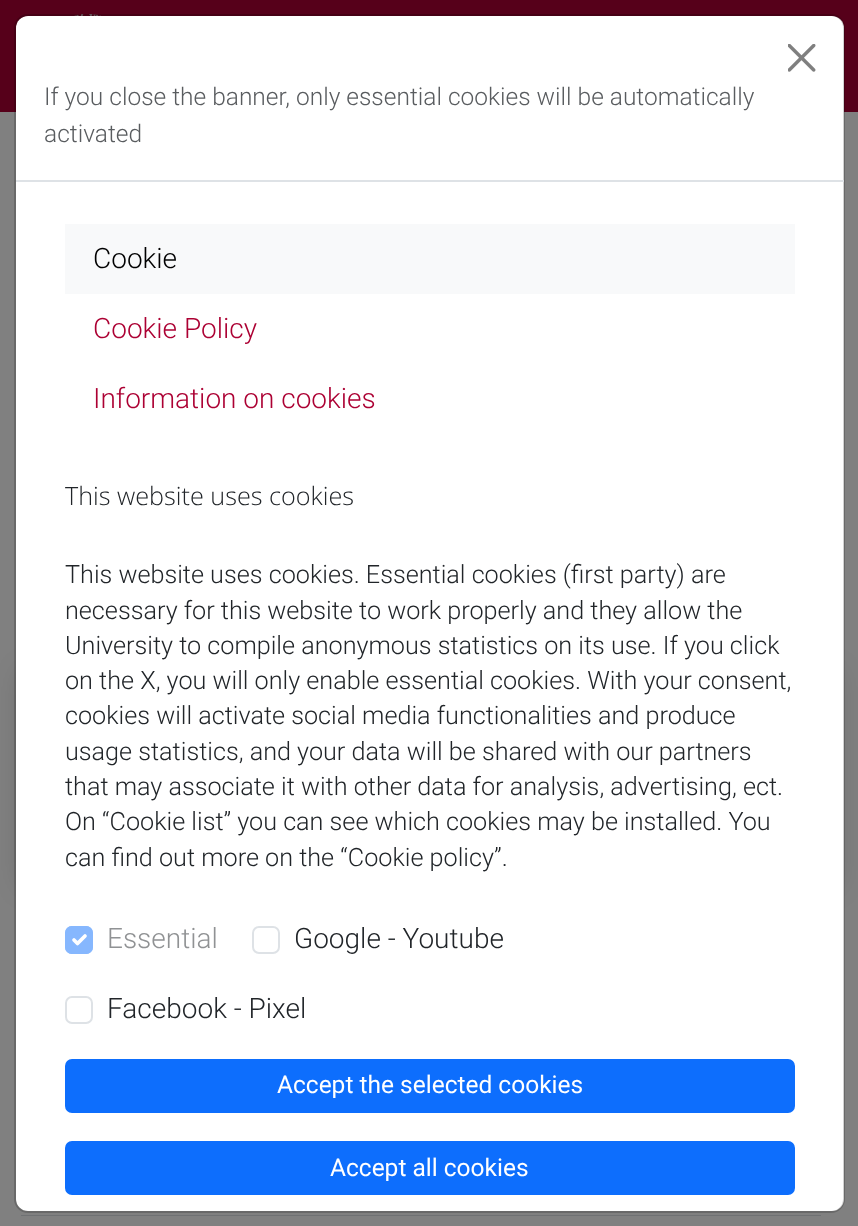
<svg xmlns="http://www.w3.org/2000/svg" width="858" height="1226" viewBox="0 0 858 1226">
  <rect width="100%" height="100%" fill="rgb(128,128,128)"/>
  <rect x="0" y="0" width="858" height="112" fill="rgb(86,0,26)"/>
  <image x="74" y="14" width="27" height="2" href="pic1.png"/>
  <rect x="21" y="670" width="817" height="217" rx="11" fill="rgba(0,0,0,0.15)" filter="blur(14px)"/>
  <rect x="21" y="1215" width="800" height="1" fill="rgb(111,113,115)"/>
  <rect x="16" y="16" width="828" height="1195" rx="12" fill="rgb(255,255,255)"/>
  <rect x="15" y="15" width="829" height="1197" rx="13" fill="none" stroke="rgba(0,0,0,0.18)" stroke-width="2"/>
  <rect x="16" y="180" width="828" height="2" fill="rgb(222,226,230)"/>
  <image x="788" y="44" width="28" height="28" href="pic2.png"/>
  <g font-family="Roboto" font-size="24.5" font-weight="300" fill="rgb(89,92,95)">
    <text>
      <tspan x="44" y="105">If you close the banner, only essential cookies will be automatically</tspan>
      <tspan x="44" y="142">activated</tspan>
    </text>
  </g>
  <rect x="65" y="224" width="730" height="70" fill="rgb(248,249,250)"/>
  <text x="93" y="268" font-family="Roboto" font-size="28" font-weight="300" fill="rgb(0,0,0)">Cookie</text>
  <g font-family="Roboto" font-size="28" font-weight="300" fill="rgb(172,0,51)">
    <text x="93" y="338">Cookie Policy</text>
    <text x="93" y="408">Information on cookies</text>
  </g>
  <text x="65" y="505" font-family="Open Sans" font-size="25.2" font-weight="300" fill="rgb(33,37,41)">This website uses cookies</text>
  <g font-family="Roboto" font-size="25.2" font-weight="300" fill="rgb(33,37,41)">
    <text>
      <tspan x="65" y="583">This website uses cookies. Essential cookies (first party) are</tspan>
      <tspan x="65" y="619">necessary for this website to work properly and they allow the</tspan>
      <tspan x="65" y="654">University to compile anonymous statistics on its use. If you click</tspan>
      <tspan x="65" y="689">on the X, you will only enable essential cookies. With your consent,</tspan>
      <tspan x="65" y="724">cookies will activate social media functionalities and produce</tspan>
      <tspan x="65" y="760">usage statistics, and your data will be shared with our partners</tspan>
      <tspan x="65" y="795">that may associate it with other data for analysis, advertising, ect.</tspan>
      <tspan x="65" y="830">On “Cookie list” you can see which cookies may be installed. You</tspan>
      <tspan x="65" y="866">can find out more on the “Cookie policy”.</tspan>
    </text>
  </g>
  <rect x="65" y="926" width="28" height="28" rx="7" fill="rgb(134,183,254)"/>
  <path d="M74 940L77.5 943.5L85 936" fill="none" stroke="rgb(255,255,255)" stroke-width="3.7" stroke-linecap="round" stroke-linejoin="round"/>
  <rect x="66" y="927" width="26" height="26" rx="6" fill="none" stroke="rgb(134,183,254)" stroke-width="2"/>
  <text x="107" y="948" font-family="Roboto" font-size="28" font-weight="300" fill="rgb(144,146,148)">Essential</text>
  <rect x="253" y="927" width="26" height="26" rx="6" fill="none" stroke="rgb(222,226,230)" stroke-width="2"/>
  <text x="294" y="948" font-family="Roboto" font-size="28" font-weight="300" fill="rgb(33,37,41)">Google - Youtube</text>
  <rect x="66" y="997" width="26" height="26" rx="6" fill="none" stroke="rgb(222,226,230)" stroke-width="2"/>
  <text x="107" y="1018" font-family="Roboto" font-size="28" font-weight="300" fill="rgb(33,37,41)">Facebook - Pixel</text>
  <rect x="66" y="1060" width="728" height="52" rx="6" fill="rgb(13,110,253)" stroke="rgb(13,110,253)" stroke-width="2"/>
  <text x="277" y="1093" font-family="Roboto" font-size="24.5" fill="rgb(255,255,255)">Accept the selected cookies</text>
  <rect x="66" y="1142" width="728" height="52" rx="6" fill="rgb(13,110,253)" stroke="rgb(13,110,253)" stroke-width="2"/>
  <text x="330" y="1176" font-family="Roboto" font-size="24.5" fill="rgb(255,255,255)">Accept all cookies</text>
</svg>
